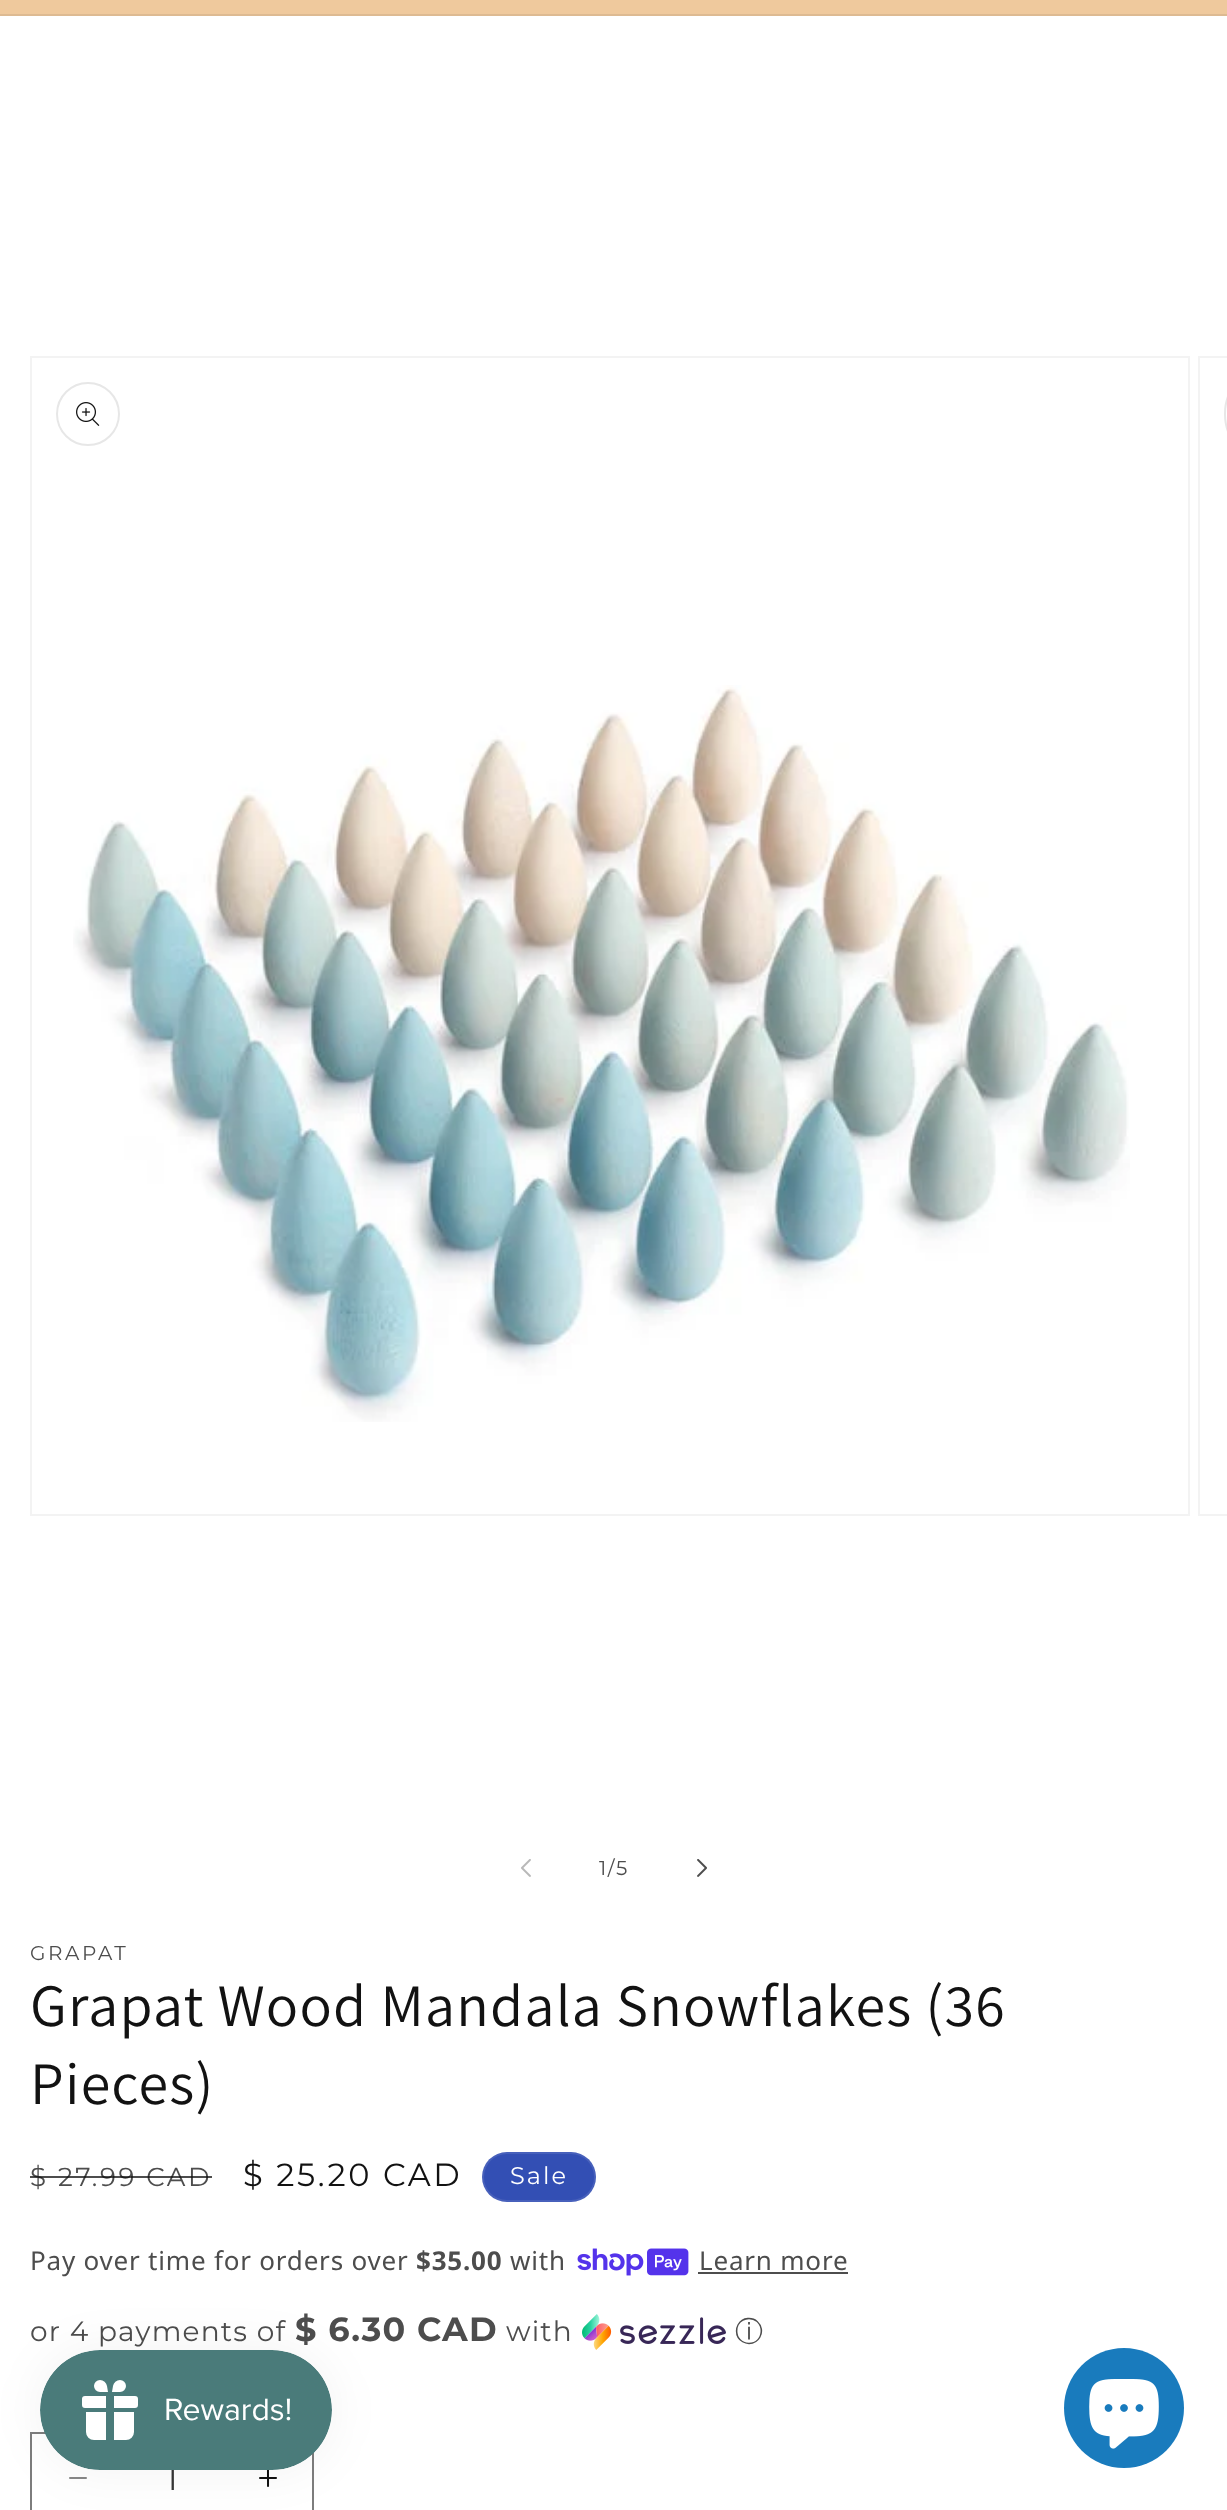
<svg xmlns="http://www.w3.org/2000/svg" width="1227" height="2510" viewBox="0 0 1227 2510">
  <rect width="100%" height="100%" fill="rgb(255,255,255)"/>
  <rect x="0" y="0" width="1227" height="14" fill="rgb(239,201,157)"/>
  <rect x="0" y="14" width="1227" height="2" fill="rgb(221,186,146)"/>
  <rect x="31" y="357" width="1158" height="1158" fill="none" stroke="rgb(243,243,243)" stroke-width="2"/>
  <circle cx="88" cy="414" r="31" fill="none" stroke="rgb(231,231,231)" stroke-width="2"/>
  <image x="76" y="402" width="24" height="24" href="pic1.png"/>
  <image x="73" y="685" width="1057" height="737" href="pic2.png"/>
  <rect x="1199" y="357" width="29" height="1158" fill="none" stroke="rgb(243,243,243)" stroke-width="2"/>
  <rect x="1225" y="383" width="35" height="62" rx="31" fill="none" stroke="rgb(231,231,231)" stroke-width="2"/>
  <image x="521" y="1859" width="10" height="18" href="pic3.png"/>
  <text x="599" y="1875" font-family="Montserrat" font-size="20" letter-spacing="1.5" fill="rgb(77,77,77)">1/5</text>
  <image x="697" y="1859" width="10" height="18" href="pic4.png"/>
  <text x="30" y="1960" font-family="Montserrat" font-size="20" letter-spacing="2.6" fill="rgb(77,77,77)">GRAPAT</text>
  <g font-family="Assistant" font-size="60" letter-spacing="1.2" fill="rgb(18,18,18)">
    <text>
      <tspan x="30" y="2026">Grapat Wood Mandala Snowflakes (36</tspan>
      <tspan x="30" y="2104">Pieces)</tspan>
    </text>
  </g>
  <text x="30" y="2186" font-family="Montserrat" font-size="26" letter-spacing="2.6" fill="rgb(77,77,77)">$ 27.99 CAD</text>
  <rect x="30" y="2176" width="182" height="2" fill="rgba(18,18,18,0.75)"/>
  <text x="243" y="2186" font-family="Montserrat" font-size="32" letter-spacing="2.6" fill="rgb(18,18,18)">$ 25.20 CAD</text>
  <rect x="482" y="2152" width="114" height="50" rx="25" fill="rgb(51,79,180)"/>
  <rect x="483" y="2153" width="112" height="48" rx="24" fill="none" stroke="rgba(255,255,255,0.1)" stroke-width="2"/>
  <text x="510" y="2184" font-family="Montserrat" font-size="24" letter-spacing="2" fill="rgb(255,255,255)">Sale</text>
  <text x="30" y="2270" font-family="Noto Sans" font-size="26" letter-spacing="0.8" fill="rgb(77,77,77)">Pay over time for orders over</text>
  <text x="416" y="2270" font-family="Noto Sans" font-size="26" font-weight="bold" letter-spacing="0.8" fill="rgb(77,77,77)">$35.00</text>
  <text x="510" y="2270" font-family="Noto Sans" font-size="26" letter-spacing="0.8" fill="rgb(77,77,77)">with</text>
  <image x="577" y="2248" width="112" height="28" href="pic5.png"/>
  <text x="699" y="2270" font-family="Noto Sans" font-size="26" letter-spacing="0.8" fill="rgb(77,77,77)">Learn more</text>
  <rect x="698" y="2272" width="150" height="2" fill="rgb(77,77,77)"/>
  <text x="30" y="2341" font-family="Montserrat" font-size="28" letter-spacing="1.2" fill="rgb(77,77,77)">or 4 payments of</text>
  <text x="295" y="2341" font-family="Montserrat" font-size="33.5" font-weight="bold" letter-spacing="1.2" fill="rgb(77,77,77)">$ 6.30 CAD</text>
  <text x="506" y="2341" font-family="Montserrat" font-size="28" letter-spacing="1.2" fill="rgb(77,77,77)">with</text>
  <image x="582" y="2314" width="144" height="36" href="pic6.png"/>
  <text x="735" y="2341" font-family="WenQuanYi Zen Hei" font-size="28" font-weight="500" letter-spacing="1.2" fill="rgb(77,77,77)">ⓘ</text>
  <image x="69" y="2477" width="18" height="2" href="pic7.png"/>
  <image x="259" y="2470" width="18" height="17" href="pic8.png"/>
  <rect x="31" y="2433" width="282" height="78" fill="none" stroke="rgb(125,125,125)" stroke-width="2"/>
  <text x="166" y="2490" font-family="Montserrat" font-size="32" fill="rgb(54,54,54)">1</text>
  <rect x="40" y="2350" width="292" height="120" rx="60" fill="rgba(0,0,0,0.05)" filter="blur(25px)"/>
  <image x="40" y="2350" width="292" height="120" href="pic9.png"/>
  <circle cx="1124" cy="2408" r="60" fill="rgb(25,123,189)"/>
  <image x="1089" y="2379" width="70" height="70" href="pic10.png"/>
</svg>
